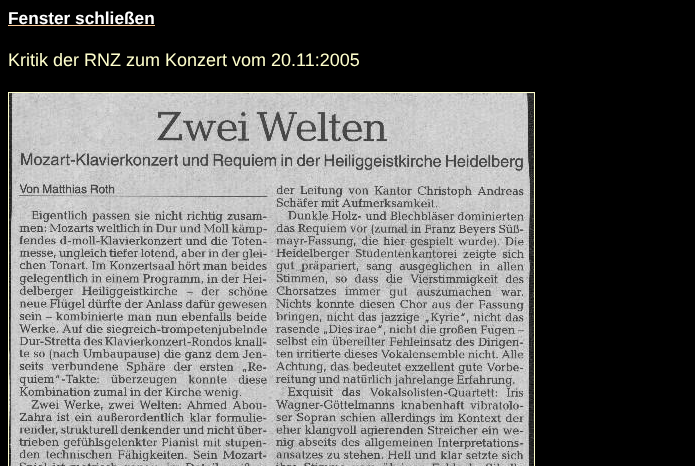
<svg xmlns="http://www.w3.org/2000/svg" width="695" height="466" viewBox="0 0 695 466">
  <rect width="100%" height="100%" fill="rgb(0,0,0)"/>
  <text x="8" y="24" font-family="Liberation Sans" font-size="17.25" font-weight="bold" fill="rgb(255,255,255)">Fenster schließen</text>
  <rect x="8" y="25" width="147" height="1" fill="rgb(255,204,153)"/>
  <text x="8" y="66" font-family="Liberation Sans" font-size="18" fill="rgb(255,255,204)">Kritik der RNZ zum Konzert vom 20.11:2005</text>
  <rect x="8.5" y="92.5" width="526" height="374" fill="none" stroke="rgb(255,255,204)"/>
  <image x="9" y="93" width="525" height="373" href="pic1.png"/>
</svg>
